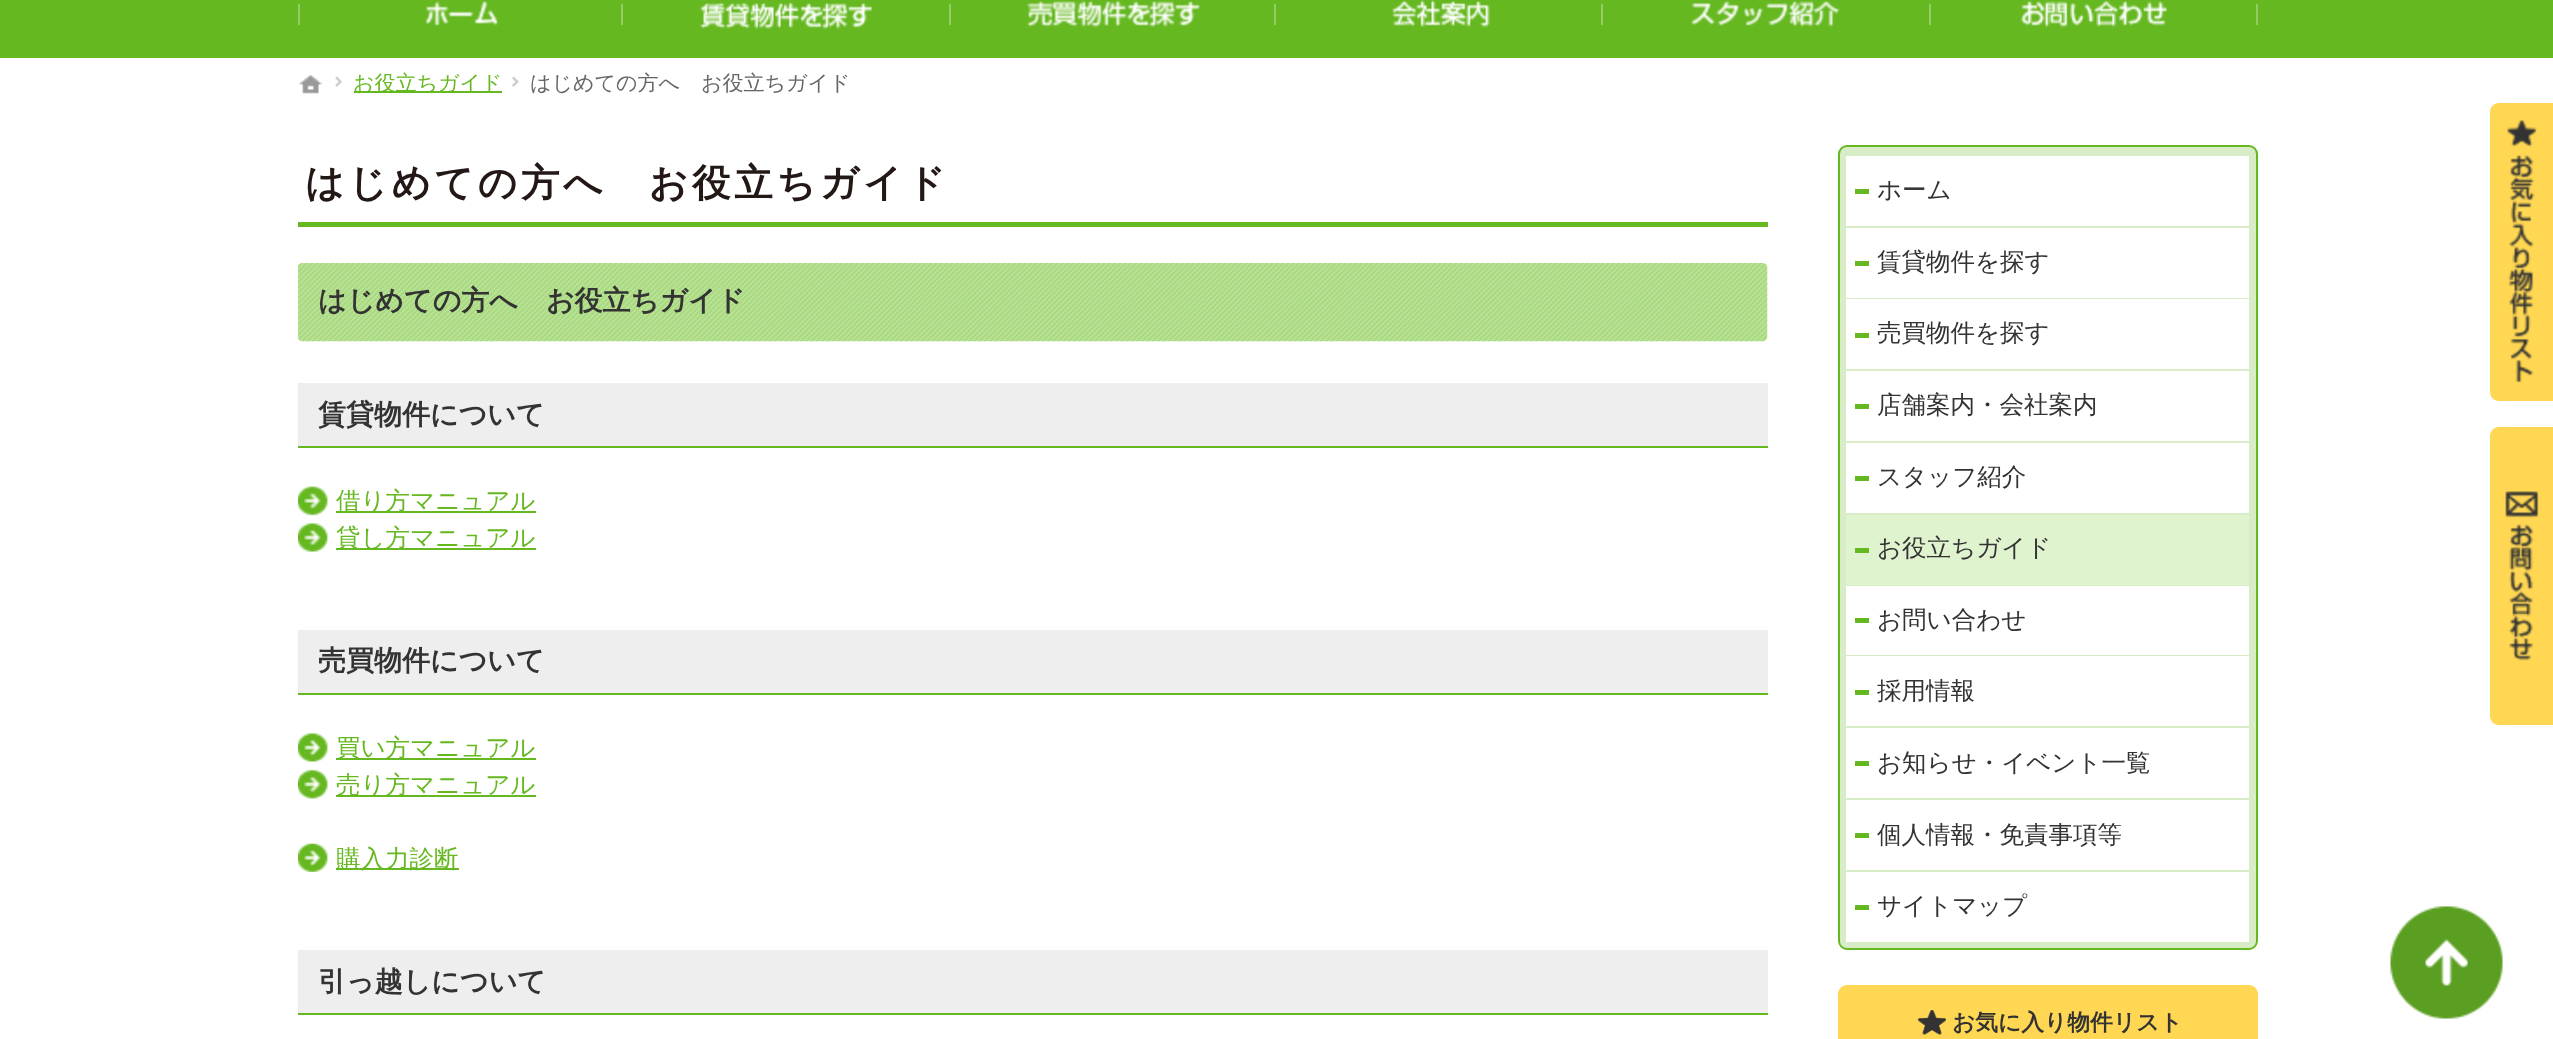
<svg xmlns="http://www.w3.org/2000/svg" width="2553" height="1039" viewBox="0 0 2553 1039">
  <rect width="100%" height="100%" fill="rgb(255,255,255)"/>
  <rect x="0" y="0" width="2553" height="58" fill="rgb(101,184,32)"/>
  <rect x="298" y="4" width="2" height="21" fill="rgb(148,205,99)"/>
  <image x="424" y="1" width="74" height="25" href="pic1.png"/>
  <rect x="621" y="4" width="2" height="21" fill="rgb(148,205,99)"/>
  <image x="699" y="1" width="175" height="29" href="pic2.png"/>
  <rect x="949" y="4" width="2" height="21" fill="rgb(148,205,99)"/>
  <image x="1026" y="0" width="175" height="28" href="pic3.png"/>
  <rect x="1274" y="4" width="2" height="21" fill="rgb(148,205,99)"/>
  <image x="1392" y="0" width="98" height="28" href="pic4.png"/>
  <rect x="1601" y="4" width="2" height="21" fill="rgb(148,205,99)"/>
  <image x="1691" y="1" width="149" height="27" href="pic5.png"/>
  <rect x="1929" y="4" width="2" height="21" fill="rgb(148,205,99)"/>
  <image x="2020" y="0" width="147" height="28" href="pic6.png"/>
  <rect x="2256" y="4" width="2" height="21" fill="rgb(148,205,99)"/>
  <image x="299" y="75" width="24" height="19" href="pic7.png"/>
  <image x="335" y="76" width="7" height="11" href="pic8.png"/>
  <rect x="354" y="91" width="148" height="2" fill="rgb(101,184,32)"/>
  <text x="353" y="90" font-family="WenQuanYi Zen Hei" font-size="21" font-weight="500" fill="rgb(101,184,32)">お役立ちガイド</text>
  <image x="512" y="76" width="7" height="11" href="pic9.png"/>
  <text x="530" y="90" font-family="WenQuanYi Zen Hei" font-size="21" font-weight="500" fill="rgb(102,102,102)">はじめての方へ　お役立ちガイド</text>
  <rect x="298" y="222" width="1470" height="5" fill="rgb(101,184,32)"/>
  <text x="305" y="196" font-family="WenQuanYi Zen Hei" font-size="38.5" font-weight="bold" letter-spacing="3.8" fill="rgb(35,24,21)">はじめての方へ　お役立ちガイド</text>
  <rect x="1839" y="146" width="418" height="803" rx="8" fill="rgb(216,237,199)" stroke="rgb(101,184,32)" stroke-width="2"/>
  <rect x="1846" y="156" width="403" height="70" fill="rgb(255,255,255)"/>
  <rect x="1855" y="189" width="14" height="5" fill="rgb(101,184,32)"/>
  <text x="1877" y="198" font-family="WenQuanYi Zen Hei" font-size="24.5" font-weight="500" fill="rgb(51,51,51)">ホーム</text>
  <rect x="1846" y="228" width="403" height="70" fill="rgb(255,255,255)"/>
  <rect x="1855" y="261" width="14" height="5" fill="rgb(101,184,32)"/>
  <text x="1877" y="270" font-family="WenQuanYi Zen Hei" font-size="24.5" font-weight="500" fill="rgb(51,51,51)">賃貸物件を探す</text>
  <rect x="1846" y="299" width="403" height="70" fill="rgb(255,255,255)"/>
  <rect x="1855" y="333" width="14" height="5" fill="rgb(101,184,32)"/>
  <text x="1877" y="341" font-family="WenQuanYi Zen Hei" font-size="24.5" font-weight="500" fill="rgb(51,51,51)">売買物件を探す</text>
  <rect x="1846" y="371" width="403" height="70" fill="rgb(255,255,255)"/>
  <rect x="1855" y="404" width="14" height="5" fill="rgb(101,184,32)"/>
  <text x="1877" y="413" font-family="WenQuanYi Zen Hei" font-size="24.5" font-weight="500" fill="rgb(51,51,51)">店舗案内・会社案内</text>
  <rect x="1846" y="443" width="403" height="70" fill="rgb(255,255,255)"/>
  <rect x="1855" y="476" width="14" height="5" fill="rgb(101,184,32)"/>
  <text x="1877" y="485" font-family="WenQuanYi Zen Hei" font-size="24.5" font-weight="500" fill="rgb(51,51,51)">スタッフ紹介</text>
  <rect x="1846" y="515" width="403" height="70" fill="rgb(223,243,207)"/>
  <rect x="1855" y="548" width="14" height="5" fill="rgb(101,184,32)"/>
  <text x="1877" y="556" font-family="WenQuanYi Zen Hei" font-size="24.5" font-weight="500" fill="rgb(51,51,51)">お役立ちガイド</text>
  <rect x="1846" y="586" width="403" height="69" fill="rgb(255,255,255)"/>
  <rect x="1855" y="618" width="14" height="5" fill="rgb(101,184,32)"/>
  <text x="1877" y="628" font-family="WenQuanYi Zen Hei" font-size="24.5" font-weight="500" fill="rgb(51,51,51)">お問い合わせ</text>
  <rect x="1846" y="656" width="403" height="70" fill="rgb(255,255,255)"/>
  <rect x="1855" y="690" width="14" height="5" fill="rgb(101,184,32)"/>
  <text x="1877" y="699" font-family="WenQuanYi Zen Hei" font-size="24.5" font-weight="500" fill="rgb(51,51,51)">採用情報</text>
  <rect x="1846" y="728" width="403" height="70" fill="rgb(255,255,255)"/>
  <rect x="1855" y="761" width="14" height="5" fill="rgb(101,184,32)"/>
  <text x="1877" y="771" font-family="WenQuanYi Zen Hei" font-size="24.5" font-weight="500" fill="rgb(51,51,51)">お知らせ・イベント一覧</text>
  <rect x="1846" y="800" width="403" height="70" fill="rgb(255,255,255)"/>
  <rect x="1855" y="833" width="14" height="5" fill="rgb(101,184,32)"/>
  <text x="1877" y="843" font-family="WenQuanYi Zen Hei" font-size="24.5" font-weight="500" fill="rgb(51,51,51)">個人情報・免責事項等</text>
  <rect x="1846" y="872" width="403" height="70" fill="rgb(255,255,255)"/>
  <rect x="1855" y="905" width="14" height="5" fill="rgb(101,184,32)"/>
  <text x="1877" y="914" font-family="WenQuanYi Zen Hei" font-size="24.5" font-weight="500" fill="rgb(51,51,51)">サイトマップ</text>
  <rect x="1838" y="985" width="420" height="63" rx="9" fill="rgb(255,215,83)"/>
  <image x="1918" y="1010" width="28" height="25" href="pic10.png"/>
  <text x="1952" y="1030" font-family="WenQuanYi Zen Hei" font-size="22.75" font-weight="bold" fill="rgb(51,51,51)">お気に入り物件リスト</text>
  <image x="298" y="263" width="1470" height="79" href="pic11.png"/>
  <text x="318" y="310" font-family="WenQuanYi Zen Hei" font-size="28" font-weight="bold" fill="rgb(51,51,51)">はじめての方へ　お役立ちガイド</text>
  <rect x="298" y="383" width="1470" height="63" fill="rgb(238,238,238)"/>
  <rect x="298" y="446" width="1470" height="2" fill="rgb(101,184,32)"/>
  <text x="318" y="424" font-family="WenQuanYi Zen Hei" font-size="28" font-weight="bold" fill="rgb(51,51,51)">賃貸物件について</text>
  <image x="298" y="486" width="30" height="30" href="pic12.png"/>
  <rect x="336" y="511" width="200" height="2" fill="rgb(101,184,32)"/>
  <text x="336" y="509" font-family="WenQuanYi Zen Hei" font-size="24.5" font-weight="500" fill="rgb(101,184,32)">借り方マニュアル</text>
  <image x="298" y="523" width="30" height="29" href="pic13.png"/>
  <rect x="336" y="548" width="200" height="2" fill="rgb(101,184,32)"/>
  <text x="336" y="546" font-family="WenQuanYi Zen Hei" font-size="24.5" font-weight="500" fill="rgb(101,184,32)">貸し方マニュアル</text>
  <rect x="298" y="630" width="1470" height="63" fill="rgb(238,238,238)"/>
  <rect x="298" y="693" width="1470" height="2" fill="rgb(101,184,32)"/>
  <text x="318" y="670" font-family="WenQuanYi Zen Hei" font-size="28" font-weight="bold" fill="rgb(51,51,51)">売買物件について</text>
  <image x="298" y="733" width="30" height="29" href="pic14.png"/>
  <rect x="336" y="758" width="200" height="2" fill="rgb(101,184,32)"/>
  <text x="336" y="756" font-family="WenQuanYi Zen Hei" font-size="24.5" font-weight="500" fill="rgb(101,184,32)">買い方マニュアル</text>
  <image x="298" y="769" width="30" height="30" href="pic15.png"/>
  <rect x="336" y="795" width="200" height="2" fill="rgb(101,184,32)"/>
  <text x="336" y="793" font-family="WenQuanYi Zen Hei" font-size="24.5" font-weight="500" fill="rgb(101,184,32)">売り方マニュアル</text>
  <image x="298" y="843" width="30" height="29" href="pic16.png"/>
  <rect x="336" y="868" width="123" height="2" fill="rgb(101,184,32)"/>
  <text x="336" y="867" font-family="WenQuanYi Zen Hei" font-size="24.5" font-weight="500" fill="rgb(101,184,32)">購入力診断</text>
  <rect x="298" y="950" width="1470" height="63" fill="rgb(238,238,238)"/>
  <rect x="298" y="1013" width="1470" height="2" fill="rgb(101,184,32)"/>
  <text x="318" y="991" font-family="WenQuanYi Zen Hei" font-size="28" font-weight="bold" fill="rgb(51,51,51)">引っ越しについて</text>
  <image x="2390" y="906" width="113" height="113" href="pic17.png"/>
  <path d="M2499 103H2553V401H2499C2494 401 2490 397 2490 392V112C2490 107 2494 103 2499 103Z" fill="rgb(255,215,83)"/>
  <image x="2507" y="120" width="30" height="263" href="pic18.png"/>
  <path d="M2499 427H2553V725H2499C2494 725 2490 721 2490 716V436C2490 431 2494 427 2499 427Z" fill="rgb(255,215,83)"/>
  <image x="2505" y="491" width="34" height="170" href="pic19.png"/>
</svg>
